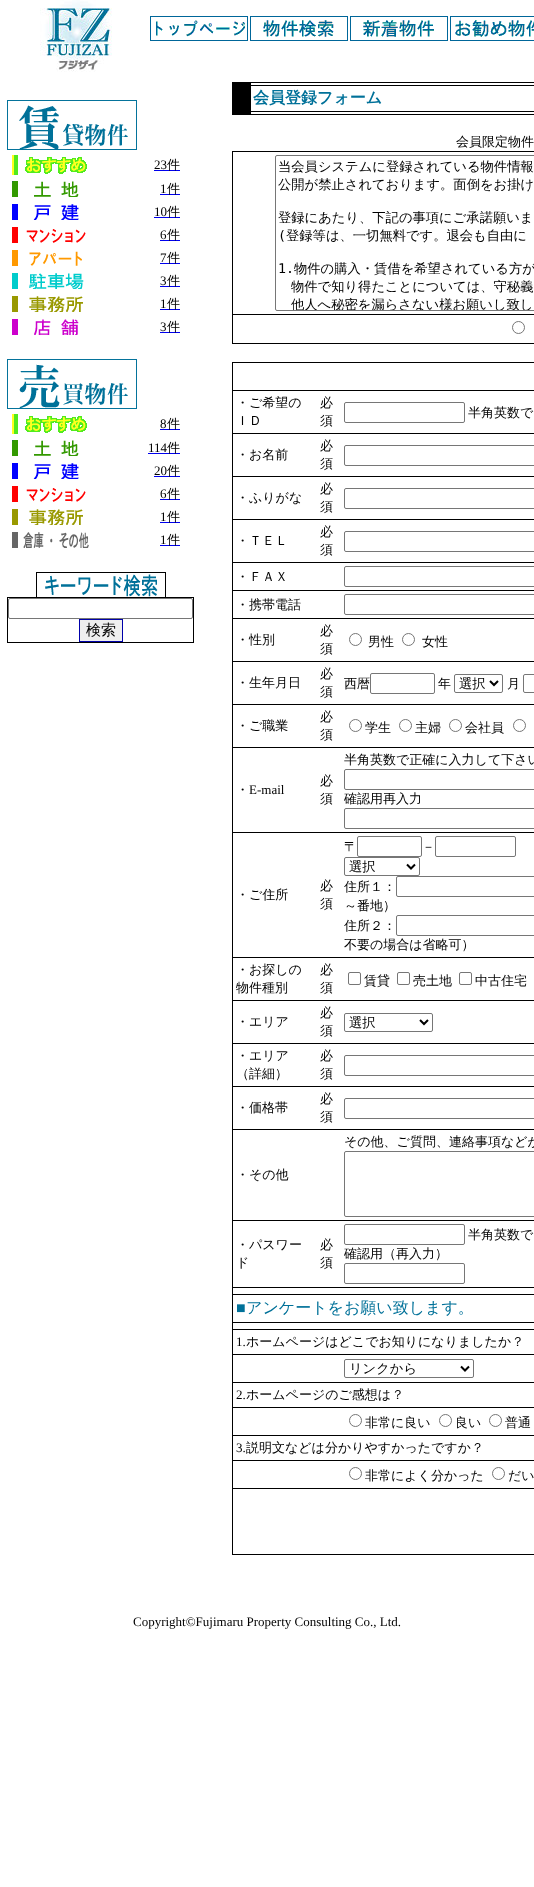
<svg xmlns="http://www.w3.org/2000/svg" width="534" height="1887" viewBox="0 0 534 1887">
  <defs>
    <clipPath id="clip1"><rect x="276" y="156" width="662" height="154"/></clipPath>
  </defs>
  <rect width="100%" height="100%" fill="rgb(255,255,255)"/>
  <image x="40" y="0" width="72" height="72" href="pic1.png"/>
  <image x="150" y="16" width="98" height="25" href="pic2.png"/>
  <image x="250" y="16" width="98" height="25" href="pic3.png"/>
  <image x="350" y="16" width="98" height="25" href="pic4.png"/>
  <image x="450" y="16" width="84" height="25" href="pic5.png"/>
  <image x="7" y="100" width="130" height="50" href="pic6.png"/>
  <image x="12" y="155" width="75" height="20" href="pic7.png"/>
  <text x="154" y="169" font-family="Liberation Serif" font-size="13" fill="rgb(0,0,0)">23</text>
  <rect x="154" y="170" width="26" height="1" fill="rgb(0,0,238)"/>
  <text x="167" y="169" font-family="WenQuanYi Zen Hei" font-size="13" font-weight="500" fill="rgb(0,0,0)">件</text>
  <image x="12" y="181" width="67" height="16" href="pic8.png"/>
  <text x="160" y="193" font-family="Liberation Serif" font-size="13" fill="rgb(0,0,0)">1</text>
  <rect x="160" y="194" width="20" height="1" fill="rgb(0,0,238)"/>
  <text x="167" y="193" font-family="WenQuanYi Zen Hei" font-size="13" font-weight="500" fill="rgb(0,0,0)">件</text>
  <image x="12" y="204" width="67" height="16" href="pic9.png"/>
  <text x="154" y="216" font-family="Liberation Serif" font-size="13" fill="rgb(0,0,0)">10</text>
  <rect x="154" y="217" width="26" height="1" fill="rgb(0,0,238)"/>
  <text x="167" y="216" font-family="WenQuanYi Zen Hei" font-size="13" font-weight="500" fill="rgb(0,0,0)">件</text>
  <image x="12" y="227" width="74" height="16" href="pic10.png"/>
  <text x="160" y="239" font-family="Liberation Serif" font-size="13" fill="rgb(0,0,0)">6</text>
  <rect x="160" y="240" width="20" height="1" fill="rgb(0,0,238)"/>
  <text x="167" y="239" font-family="WenQuanYi Zen Hei" font-size="13" font-weight="500" fill="rgb(0,0,0)">件</text>
  <image x="12" y="250" width="70" height="16" href="pic11.png"/>
  <text x="160" y="262" font-family="Liberation Serif" font-size="13" fill="rgb(0,0,0)">7</text>
  <rect x="160" y="263" width="20" height="1" fill="rgb(0,0,238)"/>
  <text x="167" y="262" font-family="WenQuanYi Zen Hei" font-size="13" font-weight="500" fill="rgb(0,0,0)">件</text>
  <image x="12" y="273" width="72" height="16" href="pic12.png"/>
  <text x="160" y="285" font-family="Liberation Serif" font-size="13" fill="rgb(0,0,0)">3</text>
  <rect x="160" y="286" width="20" height="1" fill="rgb(0,0,238)"/>
  <text x="167" y="285" font-family="WenQuanYi Zen Hei" font-size="13" font-weight="500" fill="rgb(0,0,0)">件</text>
  <image x="12" y="296" width="71" height="16" href="pic13.png"/>
  <text x="160" y="308" font-family="Liberation Serif" font-size="13" fill="rgb(0,0,0)">1</text>
  <rect x="160" y="309" width="20" height="1" fill="rgb(0,0,238)"/>
  <text x="167" y="308" font-family="WenQuanYi Zen Hei" font-size="13" font-weight="500" fill="rgb(0,0,0)">件</text>
  <image x="12" y="319" width="67" height="16" href="pic14.png"/>
  <text x="160" y="331" font-family="Liberation Serif" font-size="13" fill="rgb(0,0,0)">3</text>
  <rect x="160" y="332" width="20" height="1" fill="rgb(0,0,238)"/>
  <text x="167" y="331" font-family="WenQuanYi Zen Hei" font-size="13" font-weight="500" fill="rgb(0,0,0)">件</text>
  <image x="7" y="359" width="130" height="50" href="pic15.png"/>
  <image x="12" y="414" width="75" height="20" href="pic7.png"/>
  <text x="160" y="428" font-family="Liberation Serif" font-size="13" fill="rgb(0,0,0)">8</text>
  <rect x="160" y="429" width="20" height="1" fill="rgb(0,0,238)"/>
  <text x="167" y="428" font-family="WenQuanYi Zen Hei" font-size="13" font-weight="500" fill="rgb(0,0,0)">件</text>
  <image x="12" y="440" width="67" height="16" href="pic8.png"/>
  <text x="148" y="452" font-family="Liberation Serif" font-size="13" fill="rgb(0,0,0)">114</text>
  <rect x="148" y="453" width="32" height="1" fill="rgb(0,0,238)"/>
  <text x="167" y="452" font-family="WenQuanYi Zen Hei" font-size="13" font-weight="500" fill="rgb(0,0,0)">件</text>
  <image x="12" y="463" width="67" height="16" href="pic9.png"/>
  <text x="154" y="475" font-family="Liberation Serif" font-size="13" fill="rgb(0,0,0)">20</text>
  <rect x="154" y="476" width="26" height="1" fill="rgb(0,0,238)"/>
  <text x="167" y="475" font-family="WenQuanYi Zen Hei" font-size="13" font-weight="500" fill="rgb(0,0,0)">件</text>
  <image x="12" y="486" width="74" height="16" href="pic10.png"/>
  <text x="160" y="498" font-family="Liberation Serif" font-size="13" fill="rgb(0,0,0)">6</text>
  <rect x="160" y="499" width="20" height="1" fill="rgb(0,0,238)"/>
  <text x="167" y="498" font-family="WenQuanYi Zen Hei" font-size="13" font-weight="500" fill="rgb(0,0,0)">件</text>
  <image x="12" y="509" width="71" height="16" href="pic13.png"/>
  <text x="160" y="521" font-family="Liberation Serif" font-size="13" fill="rgb(0,0,0)">1</text>
  <rect x="160" y="522" width="20" height="1" fill="rgb(0,0,238)"/>
  <text x="167" y="521" font-family="WenQuanYi Zen Hei" font-size="13" font-weight="500" fill="rgb(0,0,0)">件</text>
  <image x="12" y="532" width="77" height="16" href="pic16.png"/>
  <text x="160" y="544" font-family="Liberation Serif" font-size="13" fill="rgb(0,0,0)">1</text>
  <rect x="160" y="545" width="20" height="1" fill="rgb(0,0,238)"/>
  <text x="167" y="544" font-family="WenQuanYi Zen Hei" font-size="13" font-weight="500" fill="rgb(0,0,0)">件</text>
  <image x="36" y="572" width="130" height="25" href="pic17.png"/>
  <rect x="7" y="597" width="187" height="46" fill="rgb(0,0,0)"/>
  <rect x="8" y="598" width="185" height="44" fill="rgb(255,255,255)"/>
  <rect x="8.5" y="598.5" width="184" height="20" rx="1.5" fill="none" stroke="rgb(118,118,118)"/>
  <rect x="79.5" y="619.5" width="43" height="22" fill="rgb(239,239,239)" stroke="rgb(0,0,170)"/>
  <text x="86" y="635" font-family="WenQuanYi Zen Hei" font-size="15" font-weight="500" fill="rgb(0,0,0)">検索</text>
  <rect x="232" y="82" width="302" height="33" fill="rgb(0,0,0)"/>
  <rect x="251" y="83" width="283" height="2" fill="rgb(255,255,255)"/>
  <rect x="251" y="86" width="283" height="25" fill="rgb(255,255,255)"/>
  <text x="253" y="103" font-family="WenQuanYi Zen Hei" font-size="16" font-weight="bold" fill="rgb(0,113,153)">会員登録フォーム</text>
  <rect x="251" y="112" width="283" height="2" fill="rgb(255,255,255)"/>
  <text x="456" y="146" font-family="WenQuanYi Zen Hei" font-size="13" font-weight="500" fill="rgb(0,0,0)">会員限定物件</text>
  <rect x="232" y="151" width="302" height="193" fill="rgb(0,0,0)"/>
  <rect x="233" y="152" width="301" height="162" fill="rgb(255,255,255)"/>
  <rect x="275.5" y="155.5" width="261" height="155" rx="1.5" fill="none" stroke="rgb(118,118,118)"/>
  <g font-family="WenQuanYi Zen Hei" font-size="13.3" font-weight="500" fill="rgb(0,0,0)">
    <text>
      <tspan x="278" y="171">当会員システムに登録されている物件情報</tspan>
      <tspan x="278" y="189">公開が禁止されております。面倒をお掛け</tspan>
    </text>
    <text x="278" y="222">登録にあたり、下記の事項にご承諾願いま</text>
  </g>
  <text x="278" y="240" font-family="DejaVu Sans Mono" font-size="13.3" fill="rgb(0,0,0)">(</text>
  <text x="286" y="240" font-family="WenQuanYi Zen Hei" font-size="13.3" font-weight="500" fill="rgb(0,0,0)">登録等は、一切無料です。退会も自由に</text>
  <text x="278" y="273" font-family="DejaVu Sans Mono" font-size="13.3" fill="rgb(0,0,0)">1.</text>
  <g font-family="WenQuanYi Zen Hei" font-size="13.3" font-weight="500" fill="rgb(0,0,0)">
    <text x="294" y="273">物件の購入・賃借を希望されている方が</text>
    <text x="291" y="291">物件で知り得たことについては、守秘義</text>
  </g>
  <g clip-path="url(#clip1)">
    <text x="291" y="309" font-family="WenQuanYi Zen Hei" font-size="13.3" font-weight="500" fill="rgb(0,0,0)">他人へ秘密を漏らさない様お願いし致し</text>
  </g>
  <rect x="233" y="315" width="301" height="28" fill="rgb(255,255,255)"/>
  <circle cx="518.5" cy="327.5" r="6" fill="none" stroke="rgb(118,118,118)"/>
  <rect x="232" y="362" width="302" height="1193" fill="rgb(0,0,0)"/>
  <rect x="233" y="363" width="301" height="27" fill="rgb(255,255,255)"/>
  <rect x="233" y="391" width="301" height="42" fill="rgb(255,255,255)"/>
  <g font-family="WenQuanYi Zen Hei" font-size="13" font-weight="500" fill="rgb(0,0,0)">
    <text>
      <tspan x="236" y="407">・ご希望の</tspan>
      <tspan x="236" y="425">ＩＤ</tspan>
    </text>
    <text>
      <tspan x="320" y="407">必</tspan>
      <tspan x="320" y="425">須</tspan>
    </text>
  </g>
  <rect x="344.5" y="402.5" width="120" height="20" rx="1.5" fill="none" stroke="rgb(118,118,118)"/>
  <text x="468" y="417" font-family="WenQuanYi Zen Hei" font-size="13" font-weight="500" fill="rgb(0,0,0)">半角英数で</text>
  <rect x="233" y="434" width="301" height="42" fill="rgb(255,255,255)"/>
  <g font-family="WenQuanYi Zen Hei" font-size="13" font-weight="500" fill="rgb(0,0,0)">
    <text x="236" y="459">・お名前</text>
    <text>
      <tspan x="320" y="450">必</tspan>
      <tspan x="320" y="468">須</tspan>
    </text>
  </g>
  <rect x="344.5" y="445.5" width="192" height="20" rx="1.5" fill="none" stroke="rgb(118,118,118)"/>
  <rect x="233" y="477" width="301" height="42" fill="rgb(255,255,255)"/>
  <g font-family="WenQuanYi Zen Hei" font-size="13" font-weight="500" fill="rgb(0,0,0)">
    <text x="236" y="502">・ふりがな</text>
    <text>
      <tspan x="320" y="493">必</tspan>
      <tspan x="320" y="511">須</tspan>
    </text>
  </g>
  <rect x="344.5" y="488.5" width="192" height="20" rx="1.5" fill="none" stroke="rgb(118,118,118)"/>
  <rect x="233" y="520" width="301" height="42" fill="rgb(255,255,255)"/>
  <g font-family="WenQuanYi Zen Hei" font-size="13" font-weight="500" fill="rgb(0,0,0)">
    <text x="236" y="545">・ＴＥＬ</text>
    <text>
      <tspan x="320" y="536">必</tspan>
      <tspan x="320" y="554">須</tspan>
    </text>
  </g>
  <rect x="344.5" y="531.5" width="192" height="20" rx="1.5" fill="none" stroke="rgb(118,118,118)"/>
  <rect x="233" y="563" width="301" height="27" fill="rgb(255,255,255)"/>
  <text x="236" y="581" font-family="WenQuanYi Zen Hei" font-size="13" font-weight="500" fill="rgb(0,0,0)">・ＦＡＸ</text>
  <rect x="344.5" y="566.5" width="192" height="20" rx="1.5" fill="none" stroke="rgb(118,118,118)"/>
  <rect x="233" y="591" width="301" height="27" fill="rgb(255,255,255)"/>
  <text x="236" y="609" font-family="WenQuanYi Zen Hei" font-size="13" font-weight="500" fill="rgb(0,0,0)">・携帯電話</text>
  <rect x="344.5" y="594.5" width="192" height="20" rx="1.5" fill="none" stroke="rgb(118,118,118)"/>
  <rect x="233" y="619" width="301" height="42" fill="rgb(255,255,255)"/>
  <g font-family="WenQuanYi Zen Hei" font-size="13" font-weight="500" fill="rgb(0,0,0)">
    <text x="236" y="644">・性別</text>
    <text>
      <tspan x="320" y="635">必</tspan>
      <tspan x="320" y="653">須</tspan>
    </text>
  </g>
  <circle cx="355.5" cy="639.5" r="6" fill="none" stroke="rgb(118,118,118)"/>
  <text x="368" y="646" font-family="WenQuanYi Zen Hei" font-size="13" font-weight="500" fill="rgb(0,0,0)">男性</text>
  <circle cx="408.5" cy="639.5" r="6" fill="none" stroke="rgb(118,118,118)"/>
  <text x="422" y="646" font-family="WenQuanYi Zen Hei" font-size="13" font-weight="500" fill="rgb(0,0,0)">女性</text>
  <rect x="233" y="662" width="301" height="42" fill="rgb(255,255,255)"/>
  <g font-family="WenQuanYi Zen Hei" font-size="13" font-weight="500" fill="rgb(0,0,0)">
    <text x="236" y="687">・生年月日</text>
    <text>
      <tspan x="320" y="678">必</tspan>
      <tspan x="320" y="696">須</tspan>
    </text>
    <text x="344" y="688">西暦</text>
  </g>
  <rect x="370.5" y="673.5" width="64" height="20" rx="1.5" fill="none" stroke="rgb(118,118,118)"/>
  <text x="438" y="688" font-family="WenQuanYi Zen Hei" font-size="13" font-weight="500" fill="rgb(0,0,0)">年</text>
  <rect x="454.5" y="674.5" width="48" height="18" rx="1.5" fill="none" stroke="rgb(118,118,118)"/>
  <path d="M490 681L494 685L498 681" fill="none" stroke="rgb(0,0,0)" stroke-width="2"/>
  <text x="459" y="688" font-family="WenQuanYi Zen Hei" font-size="13.3" font-weight="500" fill="rgb(0,0,0)">選択</text>
  <text x="507" y="688" font-family="WenQuanYi Zen Hei" font-size="13" font-weight="500" fill="rgb(0,0,0)">月</text>
  <rect x="523.5" y="674.5" width="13" height="18" rx="1.5" fill="none" stroke="rgb(118,118,118)"/>
  <rect x="233" y="705" width="301" height="42" fill="rgb(255,255,255)"/>
  <g font-family="WenQuanYi Zen Hei" font-size="13" font-weight="500" fill="rgb(0,0,0)">
    <text x="236" y="730">・ご職業</text>
    <text>
      <tspan x="320" y="721">必</tspan>
      <tspan x="320" y="739">須</tspan>
    </text>
  </g>
  <circle cx="355.5" cy="725.5" r="6" fill="none" stroke="rgb(118,118,118)"/>
  <text x="365" y="732" font-family="WenQuanYi Zen Hei" font-size="13" font-weight="500" fill="rgb(0,0,0)">学生</text>
  <circle cx="405.5" cy="725.5" r="6" fill="none" stroke="rgb(118,118,118)"/>
  <text x="415" y="732" font-family="WenQuanYi Zen Hei" font-size="13" font-weight="500" fill="rgb(0,0,0)">主婦</text>
  <circle cx="455.5" cy="725.5" r="6" fill="none" stroke="rgb(118,118,118)"/>
  <text x="465" y="732" font-family="WenQuanYi Zen Hei" font-size="13" font-weight="500" fill="rgb(0,0,0)">会社員</text>
  <circle cx="519.5" cy="725.5" r="6" fill="none" stroke="rgb(118,118,118)"/>
  <rect x="233" y="748" width="301" height="84" fill="rgb(255,255,255)"/>
  <text x="236" y="794" font-family="WenQuanYi Zen Hei" font-size="13" font-weight="500" fill="rgb(0,0,0)">・</text>
  <text x="249" y="794" font-family="Liberation Serif" font-size="13" fill="rgb(0,0,0)">E-mail</text>
  <g font-family="WenQuanYi Zen Hei" font-size="13" font-weight="500" fill="rgb(0,0,0)">
    <text>
      <tspan x="320" y="785">必</tspan>
      <tspan x="320" y="803">須</tspan>
    </text>
    <text x="344" y="764">半角英数で正確に入力して下さい</text>
  </g>
  <rect x="344.5" y="769.5" width="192" height="20" rx="1.5" fill="none" stroke="rgb(118,118,118)"/>
  <text x="344" y="803" font-family="WenQuanYi Zen Hei" font-size="13" font-weight="500" fill="rgb(0,0,0)">確認用再入力</text>
  <rect x="344.5" y="808.5" width="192" height="20" rx="1.5" fill="none" stroke="rgb(118,118,118)"/>
  <rect x="233" y="833" width="301" height="124" fill="rgb(255,255,255)"/>
  <g font-family="WenQuanYi Zen Hei" font-size="13" font-weight="500" fill="rgb(0,0,0)">
    <text x="236" y="899">・ご住所</text>
    <text>
      <tspan x="320" y="890">必</tspan>
      <tspan x="320" y="908">須</tspan>
    </text>
    <text x="344" y="851">〒</text>
  </g>
  <rect x="357.5" y="836.5" width="64" height="20" rx="1.5" fill="none" stroke="rgb(118,118,118)"/>
  <text x="422" y="851" font-family="WenQuanYi Zen Hei" font-size="13" font-weight="500" fill="rgb(0,0,0)">－</text>
  <rect x="435.5" y="836.5" width="80" height="20" rx="1.5" fill="none" stroke="rgb(118,118,118)"/>
  <rect x="344.5" y="857.5" width="75" height="18" rx="1.5" fill="none" stroke="rgb(118,118,118)"/>
  <path d="M407 864.5L411 868.5L415 864.5" fill="none" stroke="rgb(0,0,0)" stroke-width="2"/>
  <text x="349" y="871" font-family="WenQuanYi Zen Hei" font-size="13.3" font-weight="500" fill="rgb(0,0,0)">選択</text>
  <text x="344" y="891" font-family="WenQuanYi Zen Hei" font-size="13" font-weight="500" fill="rgb(0,0,0)">住所１：</text>
  <rect x="396.5" y="876.5" width="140" height="20" rx="1.5" fill="none" stroke="rgb(118,118,118)"/>
  <g font-family="WenQuanYi Zen Hei" font-size="13" font-weight="500" fill="rgb(0,0,0)">
    <text>
      <tspan x="344" y="910">～番地）</tspan>
      <tspan x="344" y="930">住所２：</tspan>
    </text>
  </g>
  <rect x="396.5" y="915.5" width="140" height="20" rx="1.5" fill="none" stroke="rgb(118,118,118)"/>
  <text x="344" y="949" font-family="WenQuanYi Zen Hei" font-size="13" font-weight="500" fill="rgb(0,0,0)">不要の場合は省略可）</text>
  <rect x="233" y="958" width="301" height="42" fill="rgb(255,255,255)"/>
  <g font-family="WenQuanYi Zen Hei" font-size="13" font-weight="500" fill="rgb(0,0,0)">
    <text>
      <tspan x="236" y="974">・お探しの</tspan>
      <tspan x="236" y="992">物件種別</tspan>
    </text>
    <text>
      <tspan x="320" y="974">必</tspan>
      <tspan x="320" y="992">須</tspan>
    </text>
  </g>
  <rect x="348.5" y="972.5" width="12" height="12" rx="1.5" fill="none" stroke="rgb(118,118,118)"/>
  <text x="364" y="985" font-family="WenQuanYi Zen Hei" font-size="13" font-weight="500" fill="rgb(0,0,0)">賃貸</text>
  <rect x="397.5" y="972.5" width="12" height="12" rx="1.5" fill="none" stroke="rgb(118,118,118)"/>
  <text x="413" y="985" font-family="WenQuanYi Zen Hei" font-size="13" font-weight="500" fill="rgb(0,0,0)">売土地</text>
  <rect x="459.5" y="972.5" width="12" height="12" rx="1.5" fill="none" stroke="rgb(118,118,118)"/>
  <text x="475" y="985" font-family="WenQuanYi Zen Hei" font-size="13" font-weight="500" fill="rgb(0,0,0)">中古住宅</text>
  <rect x="233" y="1001" width="301" height="42" fill="rgb(255,255,255)"/>
  <g font-family="WenQuanYi Zen Hei" font-size="13" font-weight="500" fill="rgb(0,0,0)">
    <text x="236" y="1026">・エリア</text>
    <text>
      <tspan x="320" y="1017">必</tspan>
      <tspan x="320" y="1035">須</tspan>
    </text>
  </g>
  <rect x="344.5" y="1013.5" width="88" height="18" rx="1.5" fill="none" stroke="rgb(118,118,118)"/>
  <path d="M420 1020L424 1024L428 1020" fill="none" stroke="rgb(0,0,0)" stroke-width="2"/>
  <text x="349" y="1027" font-family="WenQuanYi Zen Hei" font-size="13.3" font-weight="500" fill="rgb(0,0,0)">選択</text>
  <rect x="233" y="1044" width="301" height="42" fill="rgb(255,255,255)"/>
  <g font-family="WenQuanYi Zen Hei" font-size="13" font-weight="500" fill="rgb(0,0,0)">
    <text>
      <tspan x="236" y="1060">・エリア</tspan>
      <tspan x="236" y="1078">（詳細）</tspan>
    </text>
    <text>
      <tspan x="320" y="1060">必</tspan>
      <tspan x="320" y="1078">須</tspan>
    </text>
  </g>
  <rect x="344.5" y="1055.5" width="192" height="20" rx="1.5" fill="none" stroke="rgb(118,118,118)"/>
  <rect x="233" y="1087" width="301" height="42" fill="rgb(255,255,255)"/>
  <g font-family="WenQuanYi Zen Hei" font-size="13" font-weight="500" fill="rgb(0,0,0)">
    <text x="236" y="1112">・価格帯</text>
    <text>
      <tspan x="320" y="1103">必</tspan>
      <tspan x="320" y="1121">須</tspan>
    </text>
  </g>
  <rect x="344.5" y="1098.5" width="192" height="20" rx="1.5" fill="none" stroke="rgb(118,118,118)"/>
  <rect x="233" y="1130" width="301" height="90" fill="rgb(255,255,255)"/>
  <text x="344" y="1146" font-family="WenQuanYi Zen Hei" font-size="13" font-weight="500" fill="rgb(0,0,0)">その他、ご質問、連絡事項などが</text>
  <rect x="344.5" y="1151.5" width="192" height="65" rx="1.5" fill="none" stroke="rgb(118,118,118)"/>
  <text x="236" y="1179" font-family="WenQuanYi Zen Hei" font-size="13" font-weight="500" fill="rgb(0,0,0)">・その他</text>
  <rect x="233" y="1221" width="301" height="66" fill="rgb(255,255,255)"/>
  <g font-family="WenQuanYi Zen Hei" font-size="13" font-weight="500" fill="rgb(0,0,0)">
    <text>
      <tspan x="236" y="1249">・パスワー</tspan>
      <tspan x="236" y="1267">ド</tspan>
    </text>
    <text>
      <tspan x="320" y="1249">必</tspan>
      <tspan x="320" y="1267">須</tspan>
    </text>
  </g>
  <rect x="344.5" y="1224.5" width="120" height="20" rx="1.5" fill="none" stroke="rgb(118,118,118)"/>
  <g font-family="WenQuanYi Zen Hei" font-size="13" font-weight="500" fill="rgb(0,0,0)">
    <text x="468" y="1239">半角英数で</text>
    <text x="344" y="1258">確認用（再入力）</text>
  </g>
  <rect x="344.5" y="1263.5" width="120" height="20" rx="1.5" fill="none" stroke="rgb(118,118,118)"/>
  <rect x="233" y="1288" width="301" height="6" fill="rgb(255,255,255)"/>
  <rect x="233" y="1295" width="301" height="27" fill="rgb(255,255,255)"/>
  <text x="236" y="1313" font-family="Liberation Serif" font-size="16" fill="rgb(0,113,153)">■</text>
  <text x="246" y="1313" font-family="WenQuanYi Zen Hei" font-size="16" font-weight="500" fill="rgb(0,113,153)">アンケートをお願い致します。</text>
  <rect x="233" y="1323" width="301" height="6" fill="rgb(255,255,255)"/>
  <rect x="233" y="1330" width="301" height="24" fill="rgb(255,255,255)"/>
  <text x="236" y="1346" font-family="Liberation Serif" font-size="13" fill="rgb(0,0,0)">1.</text>
  <text x="246" y="1346" font-family="WenQuanYi Zen Hei" font-size="13" font-weight="500" fill="rgb(0,0,0)">ホームページはどこでお知りになりましたか？</text>
  <rect x="233" y="1355" width="301" height="27" fill="rgb(255,255,255)"/>
  <rect x="344.5" y="1359.5" width="129" height="18" rx="1.5" fill="none" stroke="rgb(118,118,118)"/>
  <path d="M461 1366.5L465 1370.5L469 1366.5" fill="none" stroke="rgb(0,0,0)" stroke-width="2"/>
  <text x="349" y="1373" font-family="WenQuanYi Zen Hei" font-size="13.3" font-weight="500" fill="rgb(0,0,0)">リンクから</text>
  <rect x="233" y="1383" width="301" height="24" fill="rgb(255,255,255)"/>
  <text x="236" y="1399" font-family="Liberation Serif" font-size="13" fill="rgb(0,0,0)">2.</text>
  <text x="246" y="1399" font-family="WenQuanYi Zen Hei" font-size="13" font-weight="500" fill="rgb(0,0,0)">ホームページのご感想は？</text>
  <rect x="233" y="1408" width="301" height="27" fill="rgb(255,255,255)"/>
  <circle cx="355.5" cy="1420.5" r="6" fill="none" stroke="rgb(118,118,118)"/>
  <text x="365" y="1427" font-family="WenQuanYi Zen Hei" font-size="13" font-weight="500" fill="rgb(0,0,0)">非常に良い</text>
  <circle cx="445.5" cy="1420.5" r="6" fill="none" stroke="rgb(118,118,118)"/>
  <text x="455" y="1427" font-family="WenQuanYi Zen Hei" font-size="13" font-weight="500" fill="rgb(0,0,0)">良い</text>
  <circle cx="495.5" cy="1420.5" r="6" fill="none" stroke="rgb(118,118,118)"/>
  <text x="505" y="1427" font-family="WenQuanYi Zen Hei" font-size="13" font-weight="500" fill="rgb(0,0,0)">普通</text>
  <rect x="233" y="1436" width="301" height="24" fill="rgb(255,255,255)"/>
  <text x="236" y="1452" font-family="Liberation Serif" font-size="13" fill="rgb(0,0,0)">3.</text>
  <text x="246" y="1452" font-family="WenQuanYi Zen Hei" font-size="13" font-weight="500" fill="rgb(0,0,0)">説明文などは分かりやすかったですか？</text>
  <rect x="233" y="1461" width="301" height="27" fill="rgb(255,255,255)"/>
  <circle cx="355.5" cy="1473.5" r="6" fill="none" stroke="rgb(118,118,118)"/>
  <text x="365" y="1480" font-family="WenQuanYi Zen Hei" font-size="13" font-weight="500" fill="rgb(0,0,0)">非常によく分かった</text>
  <circle cx="498.5" cy="1473.5" r="6" fill="none" stroke="rgb(118,118,118)"/>
  <text x="508" y="1480" font-family="WenQuanYi Zen Hei" font-size="13" font-weight="500" fill="rgb(0,0,0)">だい</text>
  <rect x="233" y="1489" width="301" height="65" fill="rgb(255,255,255)"/>
  <text x="133" y="1626" font-family="Liberation Serif" font-size="13" fill="rgb(0,0,0)">Copyright©Fujimaru Property Consulting Co., Ltd.</text>
</svg>
